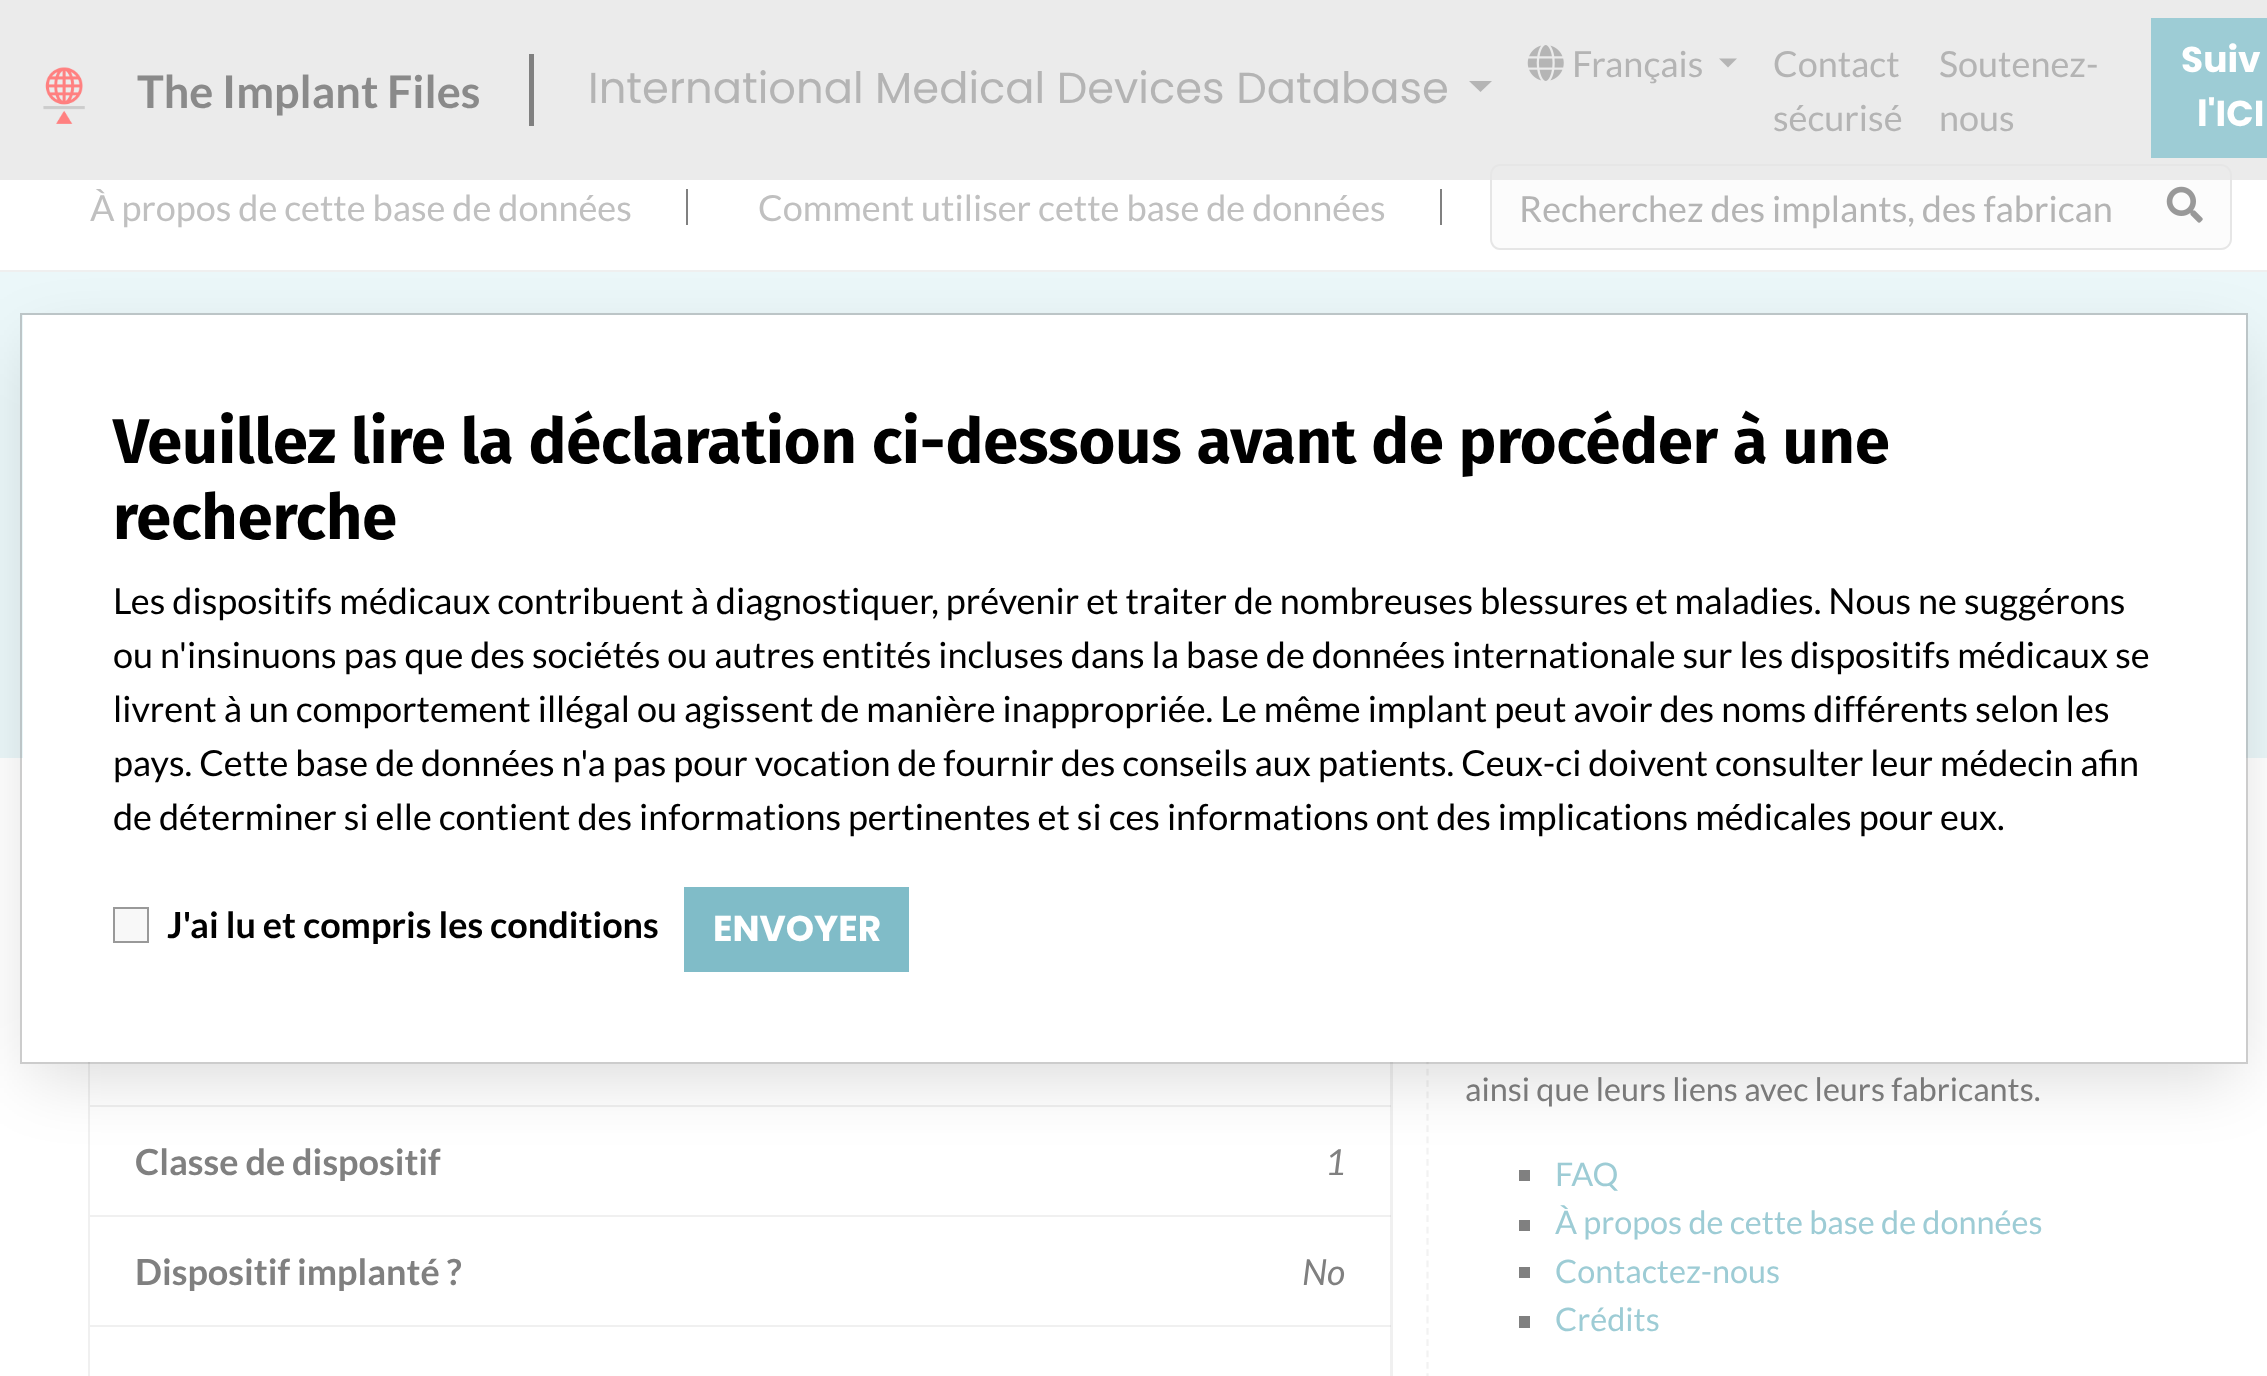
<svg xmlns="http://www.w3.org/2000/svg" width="2267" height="1376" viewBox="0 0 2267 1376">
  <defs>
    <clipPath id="clip1"><path d="M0 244H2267V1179H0ZM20 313H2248V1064H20Z" clip-rule="evenodd"/></clipPath>
  </defs>
  <rect width="100%" height="100%" fill="rgb(255,255,255)"/>
  <path d="M2140 164H2221C2227 164 2232 169 2232 175V239C2232 245 2227 250 2221 250H2140Z" fill="rgb(252,252,252)"/>
  <path d="M2140 164H2221C2227 164 2232 169 2232 175V239C2232 245 2227 250 2221 250H2140ZM2140 166H2221C2226 166 2230 170 2230 175V239C2230 244 2226 248 2221 248H2140Z" fill="rgb(230,230,230)" fill-rule="evenodd"/>
  <path d="M1501 167H2142V248H1501C1496 248 1492 244 1492 239V176C1492 171 1496 167 1501 167Z" fill="rgb(252,252,252)"/>
  <path d="M1500 164H2142V250H1500C1494 250 1490 245 1490 239V175C1490 169 1494 164 1500 164ZM1500 166H2142V248H1500C1496 248 1492 244 1492 239V175C1492 170 1496 166 1500 166Z" fill="rgb(230,230,230)" fill-rule="evenodd"/>
  <rect x="0" y="0" width="2267" height="180" fill="rgba(230,230,230,0.8)"/>
  <image x="43" y="67" width="42" height="57" href="pic1.png"/>
  <text x="137" y="108" font-family="Lato" font-size="45" font-weight="bold" fill="rgb(138,138,138)">The Implant Files</text>
  <rect x="529" y="54" width="5" height="72" fill="rgb(128,128,128)"/>
  <text x="588" y="103" font-family="Poppins" font-size="43.25" fill="rgb(180,180,180)">International Medical Devices Database</text>
  <path d="M1469 81H1492L1480.5 92Z" fill="rgb(181,181,181)"/>
  <image x="1527" y="45" width="37" height="36" href="pic2.png"/>
  <text x="1572" y="77" font-family="Lato" font-size="36" fill="rgb(180,180,180)">Français</text>
  <path d="M1719 58.5H1737L1728 67.5Z" fill="rgb(181,181,181)"/>
  <g font-family="Lato" font-size="36" fill="rgb(180,180,180)">
    <text>
      <tspan x="1773" y="77">Contact</tspan>
      <tspan x="1773" y="131">sécurisé</tspan>
    </text>
    <text>
      <tspan x="1939" y="77">Soutenez-</tspan>
      <tspan x="1939" y="131">nous</tspan>
    </text>
  </g>
  <rect x="2151" y="18" width="116" height="140" fill="rgb(157,204,213)"/>
  <g font-family="Poppins" font-size="36" font-weight="bold" fill="rgb(255,255,255)">
    <text x="2181" y="72">Suiv</text>
    <text x="2197" y="126">l'ICI</text>
  </g>
  <rect x="0" y="270" width="2267" height="2" fill="rgb(239,239,239)"/>
  <text x="90" y="221" font-family="Lato" font-size="36" fill="rgb(192,192,192)">À propos de cette base de données</text>
  <rect x="686" y="189" width="2" height="36" fill="rgb(128,128,128)"/>
  <text x="758" y="221" font-family="Lato" font-size="36" fill="rgb(192,192,192)">Comment utiliser cette base de données</text>
  <rect x="1440" y="189" width="2" height="36" fill="rgb(128,128,128)"/>
  <text x="1519" y="222" font-family="Lato" font-size="36" fill="rgb(180,180,180)">Recherchez des implants, des fabrican</text>
  <image x="2166" y="186" width="37" height="37" href="pic3.png"/>
  <rect x="0" y="272" width="2267" height="486" fill="rgb(235,247,249)"/>
  <path d="M1393 866V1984L1390 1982V873Z" fill="rgba(128,128,128,0.12)"/>
  <path d="M88 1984V866L90 873V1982Z" fill="rgba(128,128,128,0.12)"/>
  <rect x="90" y="1105" width="1301" height="2" fill="rgba(128,128,128,0.12)"/>
  <rect x="90" y="1215" width="1301" height="2" fill="rgba(128,128,128,0.12)"/>
  <text x="135" y="1175" font-family="Lato" font-size="36" font-weight="bold" fill="rgb(128,128,128)">Classe de dispositif</text>
  <text x="1325" y="1175" font-family="Lato" font-size="36" font-style="italic" fill="rgb(128,128,128)">1</text>
  <rect x="90" y="1325" width="1301" height="2" fill="rgba(128,128,128,0.12)"/>
  <text x="135" y="1285" font-family="Lato" font-size="36" font-weight="bold" fill="rgb(128,128,128)">Dispositif implanté ?</text>
  <text x="1302" y="1285" font-family="Lato" font-size="36" font-style="italic" fill="rgb(128,128,128)">No</text>
  <path d="M1427.5 866V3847.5" fill="none" stroke="rgb(242,242,242)" stroke-width="2.2" stroke-dasharray="6.75 4.52"/>
  <text x="1465" y="1101" font-family="Lato" font-size="32.4" fill="rgb(128,128,128)">ainsi que leurs liens avec leurs fabricants.</text>
  <rect x="1519" y="1170" width="11" height="11" fill="rgb(128,128,128)"/>
  <text x="1555" y="1186" font-family="Lato" font-size="32.4" fill="rgb(157,204,213)">FAQ</text>
  <rect x="1519" y="1220" width="11" height="11" fill="rgb(128,128,128)"/>
  <text x="1555" y="1234" font-family="Lato" font-size="32.4" fill="rgb(157,204,213)">À propos de cette base de données</text>
  <rect x="1519" y="1267" width="11" height="11" fill="rgb(128,128,128)"/>
  <text x="1555" y="1283" font-family="Lato" font-size="32.4" fill="rgb(157,204,213)">Contactez-nous</text>
  <rect x="1519" y="1316" width="11" height="12" fill="rgb(128,128,128)"/>
  <text x="1555" y="1331" font-family="Lato" font-size="32.4" fill="rgb(157,204,213)">Crédits</text>
  <g clip-path="url(#clip1)">
    <rect x="32" y="347" width="2205" height="729" fill="rgba(0,0,0,0.15)" filter="blur(34px)"/>
  </g>
  <rect x="23" y="315" width="2223" height="747" fill="rgb(255,255,255)"/>
  <rect x="21" y="314" width="2226" height="749" fill="none" stroke="rgba(0,0,0,0.2)" stroke-width="2"/>
  <g font-family="Fira Sans" font-size="63" font-weight="bold" fill="rgb(0,0,0)">
    <text>
      <tspan x="113" y="463">Veuillez lire la déclaration ci-dessous avant de procéder à une</tspan>
      <tspan x="113" y="539">recherche</tspan>
    </text>
  </g>
  <g font-family="Lato" font-size="36" fill="rgb(0,0,0)">
    <text>
      <tspan x="113" y="614">Les dispositifs médicaux contribuent à diagnostiquer, prévenir et traiter de nombreuses blessures et maladies. Nous ne suggérons</tspan>
      <tspan x="113" y="668">ou n'insinuons pas que des sociétés ou autres entités incluses dans la base de données internationale sur les dispositifs médicaux se</tspan>
      <tspan x="113" y="722">livrent à un comportement illégal ou agissent de manière inappropriée. Le même implant peut avoir des noms différents selon les</tspan>
      <tspan x="113" y="776">pays. Cette base de données n'a pas pour vocation de fournir des conseils aux patients. Ceux-ci doivent consulter leur médecin afin</tspan>
      <tspan x="113" y="830">de déterminer si elle contient des informations pertinentes et si ces informations ont des implications médicales pour eux.</tspan>
    </text>
  </g>
  <rect x="114" y="908" width="34" height="34" fill="rgb(248,248,248)" stroke="rgb(153,153,153)" stroke-width="2"/>
  <text x="167" y="938" font-family="Lato" font-size="36" font-weight="bold" fill="rgb(0,0,0)">J'ai lu et compris les conditions</text>
  <rect x="684" y="887" width="225" height="85" fill="rgb(128,188,200)"/>
  <text x="713" y="941" font-family="Poppins" font-size="36" font-weight="bold" fill="rgb(255,255,255)">ENVOYER</text>
</svg>
